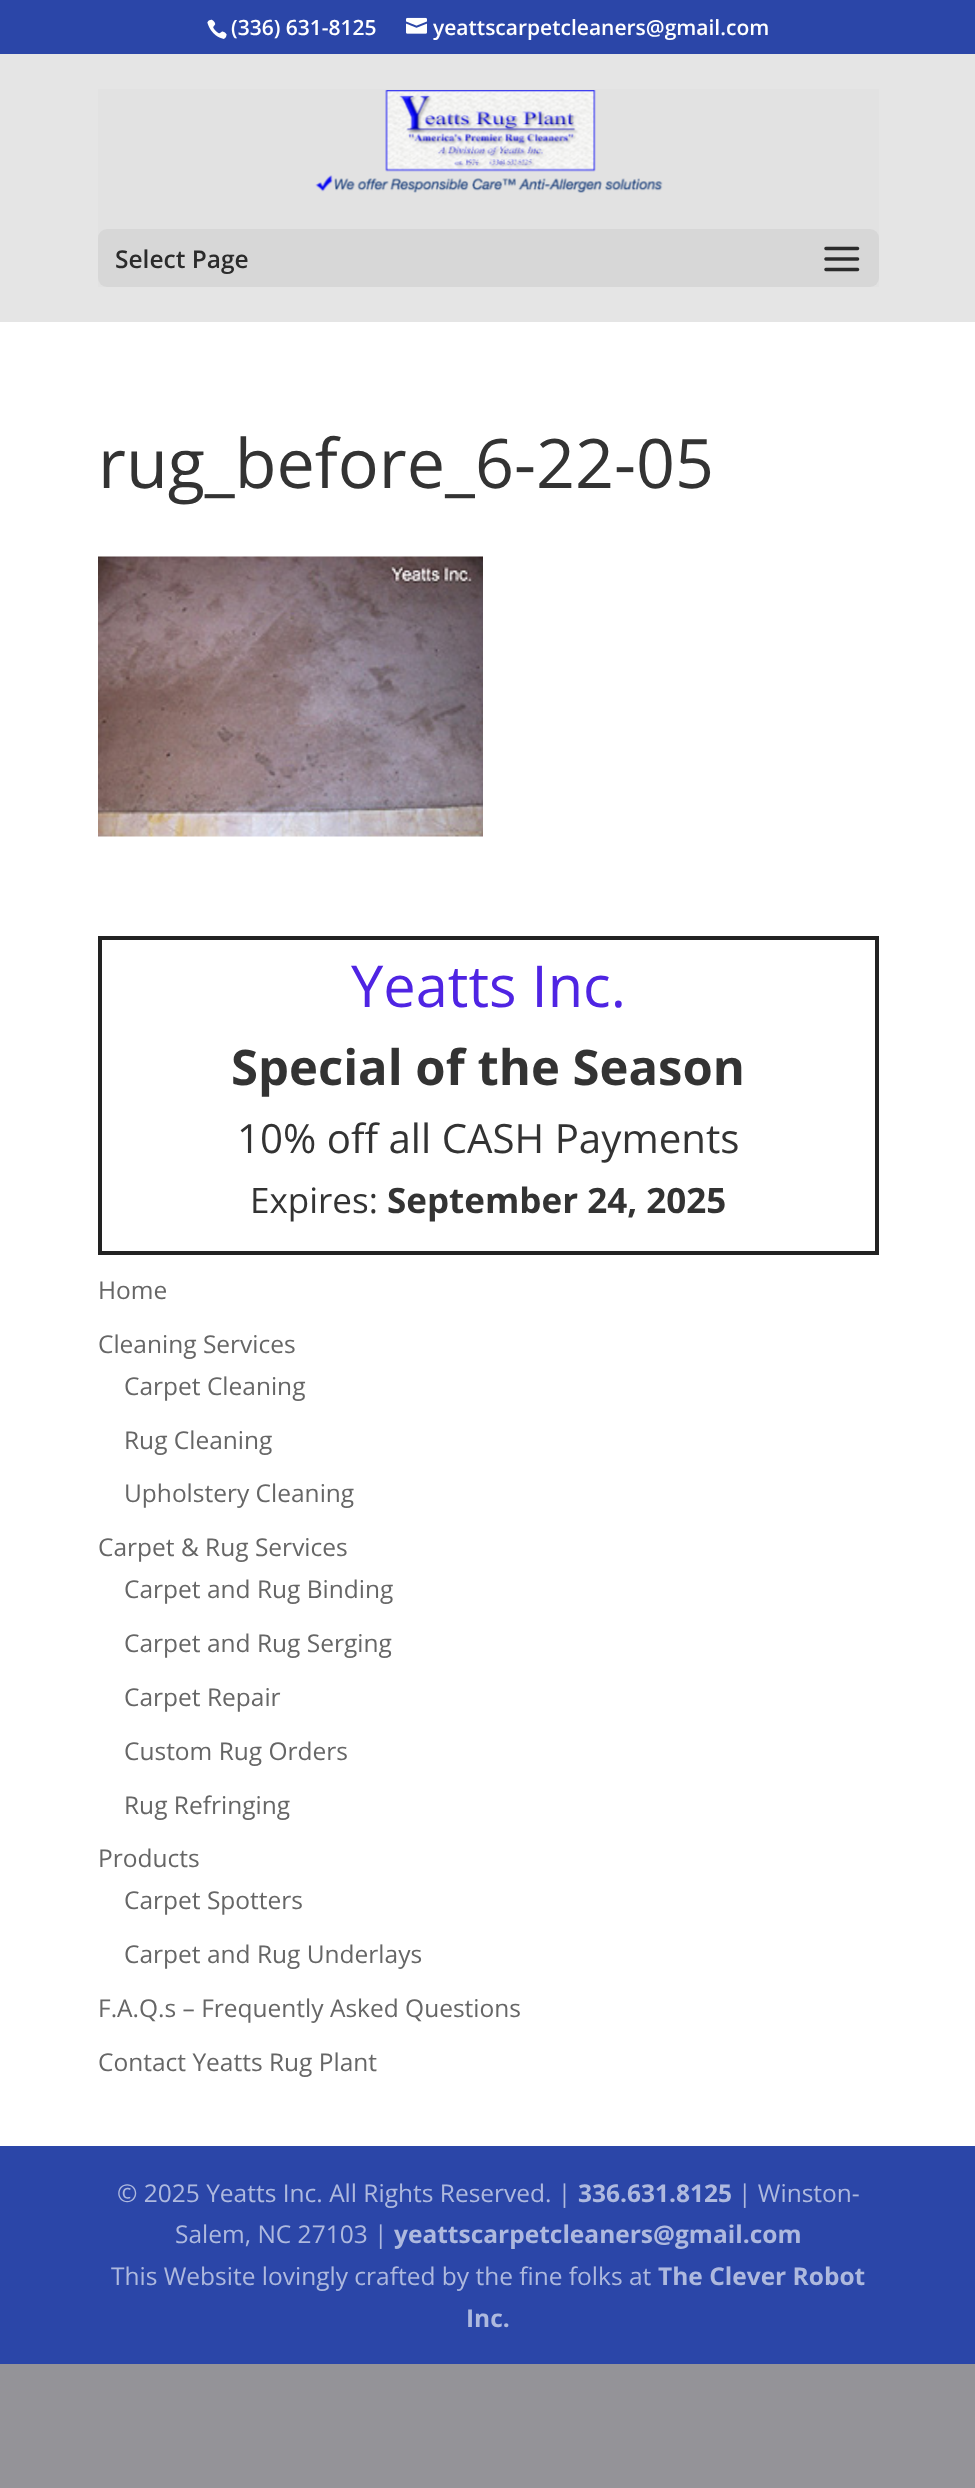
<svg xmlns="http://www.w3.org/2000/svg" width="975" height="2488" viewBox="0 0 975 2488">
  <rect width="100%" height="100%" fill="rgb(255,255,255)"/>
  <image x="0" y="2364" width="975" height="124" href="pic1.png"/>
  <rect x="0" y="0" width="975" height="54" fill="rgb(43,70,168)"/>
  <image x="207" y="19" width="20" height="20" href="pic2.png"/>
  <text x="231" y="35" font-family="Open Sans" font-size="21" font-weight="600" fill="rgb(255,255,255)">(336) 631-8125</text>
  <image x="406" y="17" width="21" height="17" href="pic3.png"/>
  <text x="433" y="35" font-family="Open Sans" font-size="21" font-weight="600" fill="rgb(255,255,255)">yeattscarpetcleaners@gmail.com</text>
  <rect x="0" y="54" width="975" height="268" fill="rgb(229,229,229)"/>
  <rect x="98" y="89" width="781" height="198" fill="rgb(226,226,226)"/>
  <image x="315" y="90" width="348" height="103" href="pic4.png"/>
  <rect x="98" y="229" width="781" height="58" rx="9" fill="rgb(215,215,215)"/>
  <text x="115" y="268" font-family="Open Sans" font-size="24.5" font-weight="600" fill="rgb(43,43,43)">Select Page</text>
  <image x="824" y="246" width="36" height="26" href="pic5.png"/>
  <text x="98" y="488" font-family="Open Sans" font-size="68.25" fill="rgb(51,51,51)">rug_before_6-22-05</text>
  <image x="98" y="556" width="385" height="281" href="pic6.png"/>
  <rect x="100" y="938" width="777" height="315" fill="none" stroke="rgb(34,34,34)" stroke-width="4"/>
  <text x="351" y="1007" font-family="Open Sans" font-size="57.75" fill="rgb(79,36,227)">Yeatts Inc.</text>
  <text x="231" y="1085" font-family="Open Sans" font-size="49" font-weight="bold" fill="rgb(51,51,51)">Special of the Season</text>
  <text x="237" y="1153" font-family="Open Sans" font-size="40.25" fill="rgb(51,51,51)">10% off all CASH Payments</text>
  <text x="250" y="1213" font-family="Open Sans" font-size="35" fill="rgb(51,51,51)">Expires:</text>
  <text x="387" y="1213" font-family="Open Sans" font-size="35" font-weight="bold" fill="rgb(51,51,51)">September 24, 2025</text>
  <g font-family="Open Sans" font-size="24.5" fill="rgb(102,102,102)">
    <text x="98" y="1299">Home</text>
    <text x="98" y="1353">Cleaning Services</text>
    <text x="124" y="1395">Carpet Cleaning</text>
    <text x="124" y="1449">Rug Cleaning</text>
    <text x="124" y="1502">Upholstery Cleaning</text>
    <text x="98" y="1556">Carpet &amp; Rug Services</text>
    <text x="124" y="1598">Carpet and Rug Binding</text>
    <text x="124" y="1652">Carpet and Rug Serging</text>
    <text x="124" y="1706">Carpet Repair</text>
    <text x="124" y="1760">Custom Rug Orders</text>
    <text x="124" y="1814">Rug Refringing</text>
    <text x="98" y="1867">Products</text>
    <text x="124" y="1909">Carpet Spotters</text>
    <text x="124" y="1963">Carpet and Rug Underlays</text>
    <text x="98" y="2017">F.A.Q.s – Frequently Asked Questions</text>
    <text x="98" y="2071">Contact Yeatts Rug Plant</text>
  </g>
  <rect x="0" y="2146" width="975" height="218" fill="rgb(43,70,168)"/>
  <text x="117" y="2202" font-family="Open Sans" font-size="24.5" fill="rgb(174,185,222)">© 2025 Yeatts Inc. All Rights Reserved. |</text>
  <text x="578" y="2202" font-family="Open Sans" font-size="24.5" font-weight="bold" fill="rgb(174,185,222)">336.631.8125</text>
  <g font-family="Open Sans" font-size="24.5" fill="rgb(174,185,222)">
    <text x="738" y="2202">| Winston-</text>
    <text x="175" y="2243">Salem, NC 27103 |</text>
  </g>
  <text x="394" y="2243" font-family="Open Sans" font-size="24.5" font-weight="bold" fill="rgb(174,185,222)">yeattscarpetcleaners@gmail.com</text>
  <text x="111" y="2285" font-family="Open Sans" font-size="24.5" fill="rgb(174,185,222)">This Website lovingly crafted by the fine folks at</text>
  <g font-family="Open Sans" font-size="24.5" font-weight="bold" fill="rgb(174,185,222)">
    <text x="658" y="2285">The Clever Robot</text>
    <text x="466" y="2327">Inc.</text>
  </g>
</svg>
